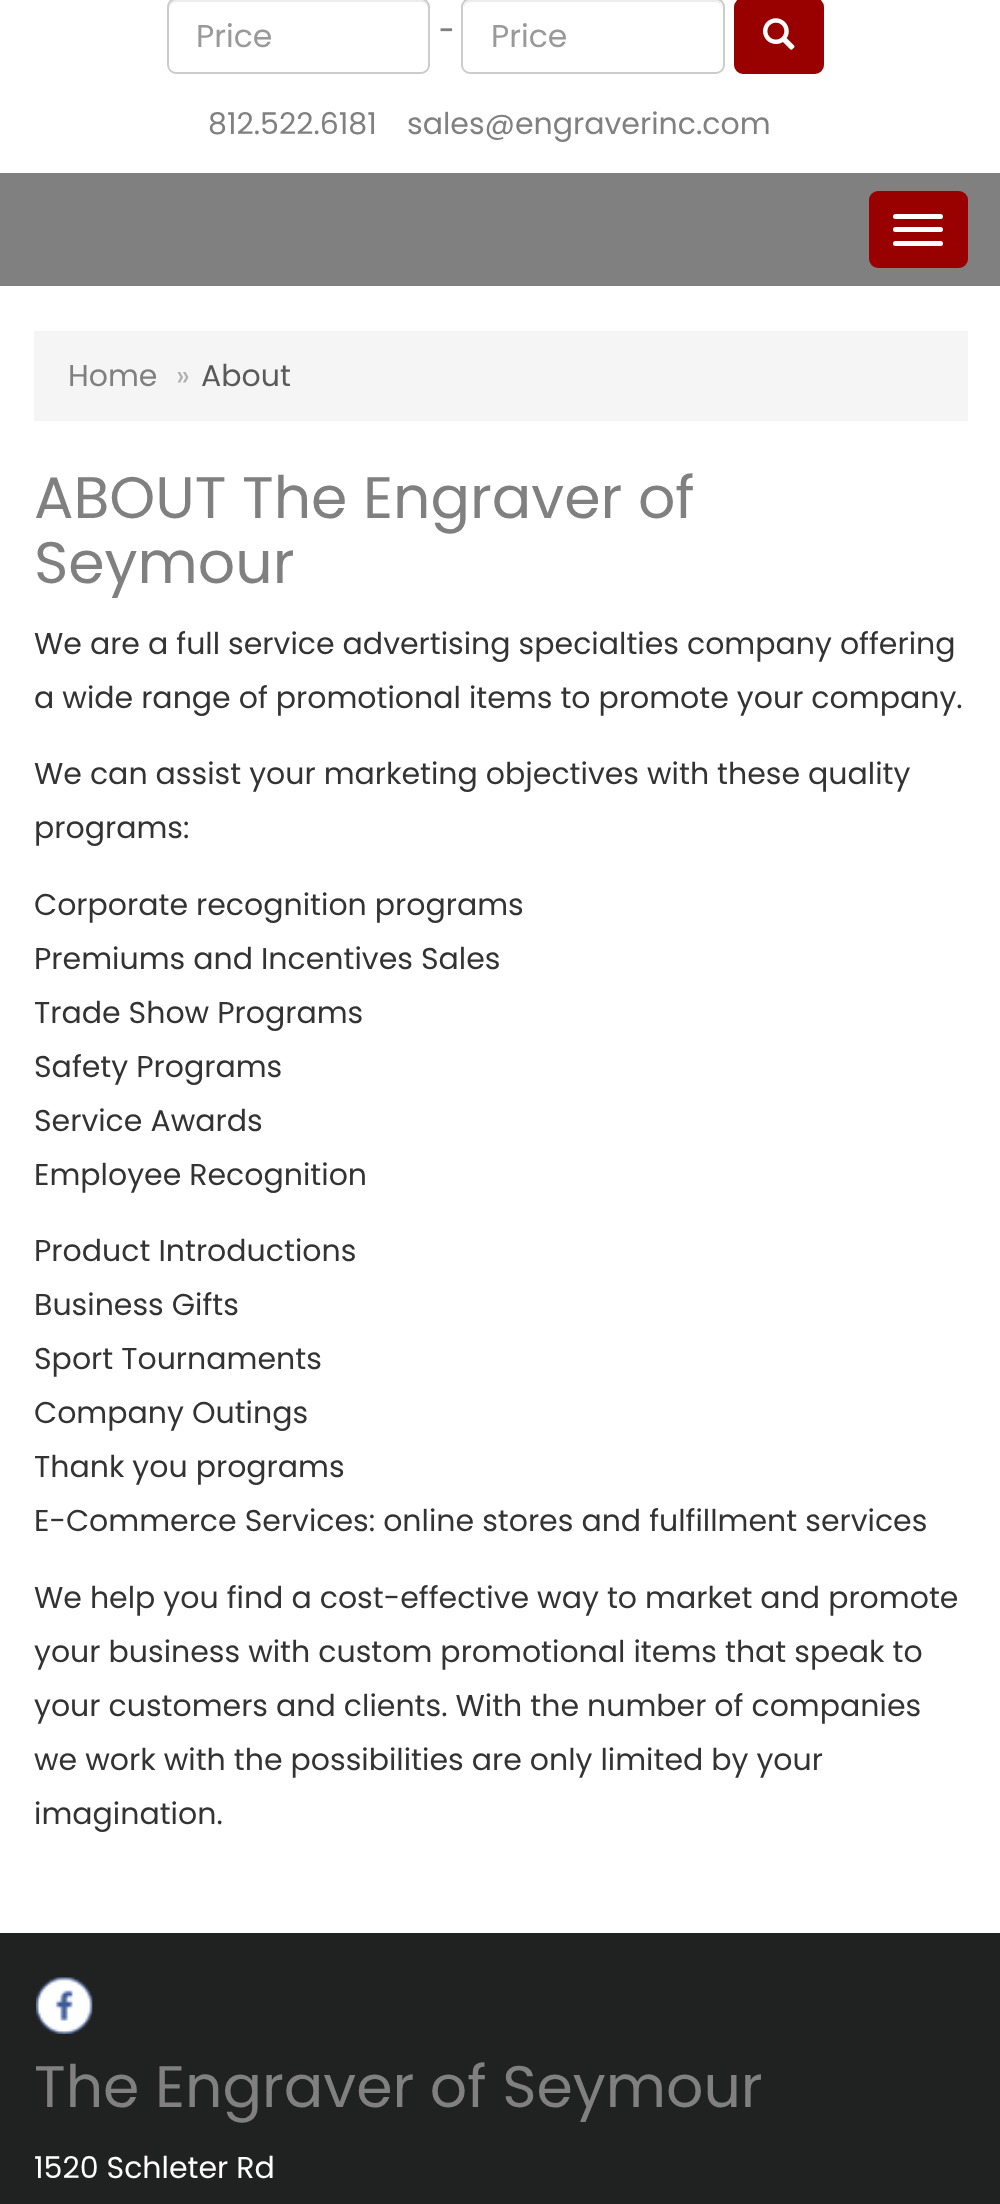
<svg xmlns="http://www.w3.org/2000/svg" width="1000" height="2204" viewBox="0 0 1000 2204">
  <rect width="100%" height="100%" fill="rgb(255,255,255)"/>
  <path d="M176 2H421C424 2 428 5 428 9V7C428 3 425 0 421 0H176C172 0 169 3 169 7V9C169 5 172 2 176 2Z" fill="rgb(236,236,236)"/>
  <rect x="168" y="-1" width="261" height="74" rx="8" fill="none" stroke="rgb(204,204,204)" stroke-width="2"/>
  <text x="196" y="47" font-family="Poppins" font-size="31.5" fill="rgb(153,153,153)">Price</text>
  <text x="439" y="40" font-family="Poppins" font-size="27" font-weight="bold" fill="rgb(128,128,128)">-</text>
  <path d="M470 2H716C719 2 722 5 722 9V7C722 3 719 0 715 0H471C467 0 464 3 464 7V9C464 5 467 2 470 2Z" fill="rgb(236,236,236)"/>
  <rect x="462" y="-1" width="262" height="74" rx="8" fill="none" stroke="rgb(204,204,204)" stroke-width="2"/>
  <text x="491" y="47" font-family="Poppins" font-size="31.5" fill="rgb(153,153,153)">Price</text>
  <rect x="735" y="-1" width="88" height="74" rx="8" fill="rgb(153,0,0)" stroke="rgb(153,0,0)" stroke-width="2"/>
  <image x="763" y="18" width="32" height="32" href="pic1.png"/>
  <g font-family="Poppins" font-size="30" fill="rgb(128,128,128)">
    <text x="208" y="134">812.522.6181</text>
    <text x="407" y="134">sales@engraverinc.com</text>
  </g>
  <rect x="0" y="173" width="1000" height="113" fill="rgb(128,128,128)"/>
  <rect x="870" y="192" width="97" height="75" rx="8" fill="rgb(153,0,0)" stroke="rgb(153,0,0)" stroke-width="2"/>
  <rect x="893" y="214" width="50" height="5" rx="2.5" fill="rgb(255,255,255)"/>
  <rect x="893" y="227" width="50" height="5" rx="2.5" fill="rgb(255,255,255)"/>
  <rect x="893" y="241" width="50" height="5" rx="2.5" fill="rgb(255,255,255)"/>
  <rect x="34" y="331" width="934" height="90" fill="rgb(245,245,245)"/>
  <text x="68" y="386" font-family="Poppins" font-size="30" fill="rgb(128,128,128)">Home</text>
  <text x="176" y="386" font-family="Poppins" font-size="30" fill="rgb(178,177,177)">»</text>
  <text x="201" y="386" font-family="Poppins" font-size="30" fill="rgb(91,90,90)">About</text>
  <g font-family="Poppins" font-size="58.5" fill="rgb(128,128,128)">
    <text>
      <tspan x="34" y="518">ABOUT The Engraver of</tspan>
      <tspan x="34" y="583">Seymour</tspan>
    </text>
  </g>
  <g font-family="Poppins" font-size="30" fill="rgb(51,51,51)">
    <text>
      <tspan x="34" y="654">We are a full service advertising specialties company offering</tspan>
      <tspan x="34" y="708">a wide range of promotional items to promote your company.</tspan>
    </text>
    <text>
      <tspan x="34" y="784">We can assist your marketing objectives with these quality</tspan>
      <tspan x="34" y="838">programs:</tspan>
    </text>
    <text>
      <tspan x="34" y="915">Corporate recognition programs</tspan>
      <tspan x="34" y="969">Premiums and Incentives Sales</tspan>
      <tspan x="34" y="1023">Trade Show Programs</tspan>
      <tspan x="34" y="1077">Safety Programs</tspan>
      <tspan x="34" y="1131">Service Awards</tspan>
      <tspan x="34" y="1185">Employee Recognition</tspan>
    </text>
    <text>
      <tspan x="34" y="1261">Product Introductions</tspan>
      <tspan x="34" y="1315">Business Gifts</tspan>
      <tspan x="34" y="1369">Sport Tournaments</tspan>
      <tspan x="34" y="1423">Company Outings</tspan>
      <tspan x="34" y="1477">Thank you programs</tspan>
      <tspan x="34" y="1531">E-Commerce Services: online stores and fulfillment services</tspan>
    </text>
    <text>
      <tspan x="34" y="1608">We help you find a cost-effective way to market and promote</tspan>
      <tspan x="34" y="1662">your business with custom promotional items that speak to</tspan>
      <tspan x="34" y="1716">your customers and clients. With the number of companies</tspan>
      <tspan x="34" y="1770">we work with the possibilities are only limited by your</tspan>
      <tspan x="34" y="1824">imagination.</tspan>
    </text>
  </g>
  <rect x="0" y="1933" width="1000" height="271" fill="rgb(32,33,33)"/>
  <image x="36" y="1977" width="57" height="57" href="pic2.png"/>
  <text x="34" y="2107" font-family="Poppins" font-size="58.5" fill="rgb(128,128,128)">The Engraver of Seymour</text>
  <text x="34" y="2178" font-family="Poppins" font-size="30" fill="rgb(255,255,255)">1520 Schleter Rd</text>
</svg>
